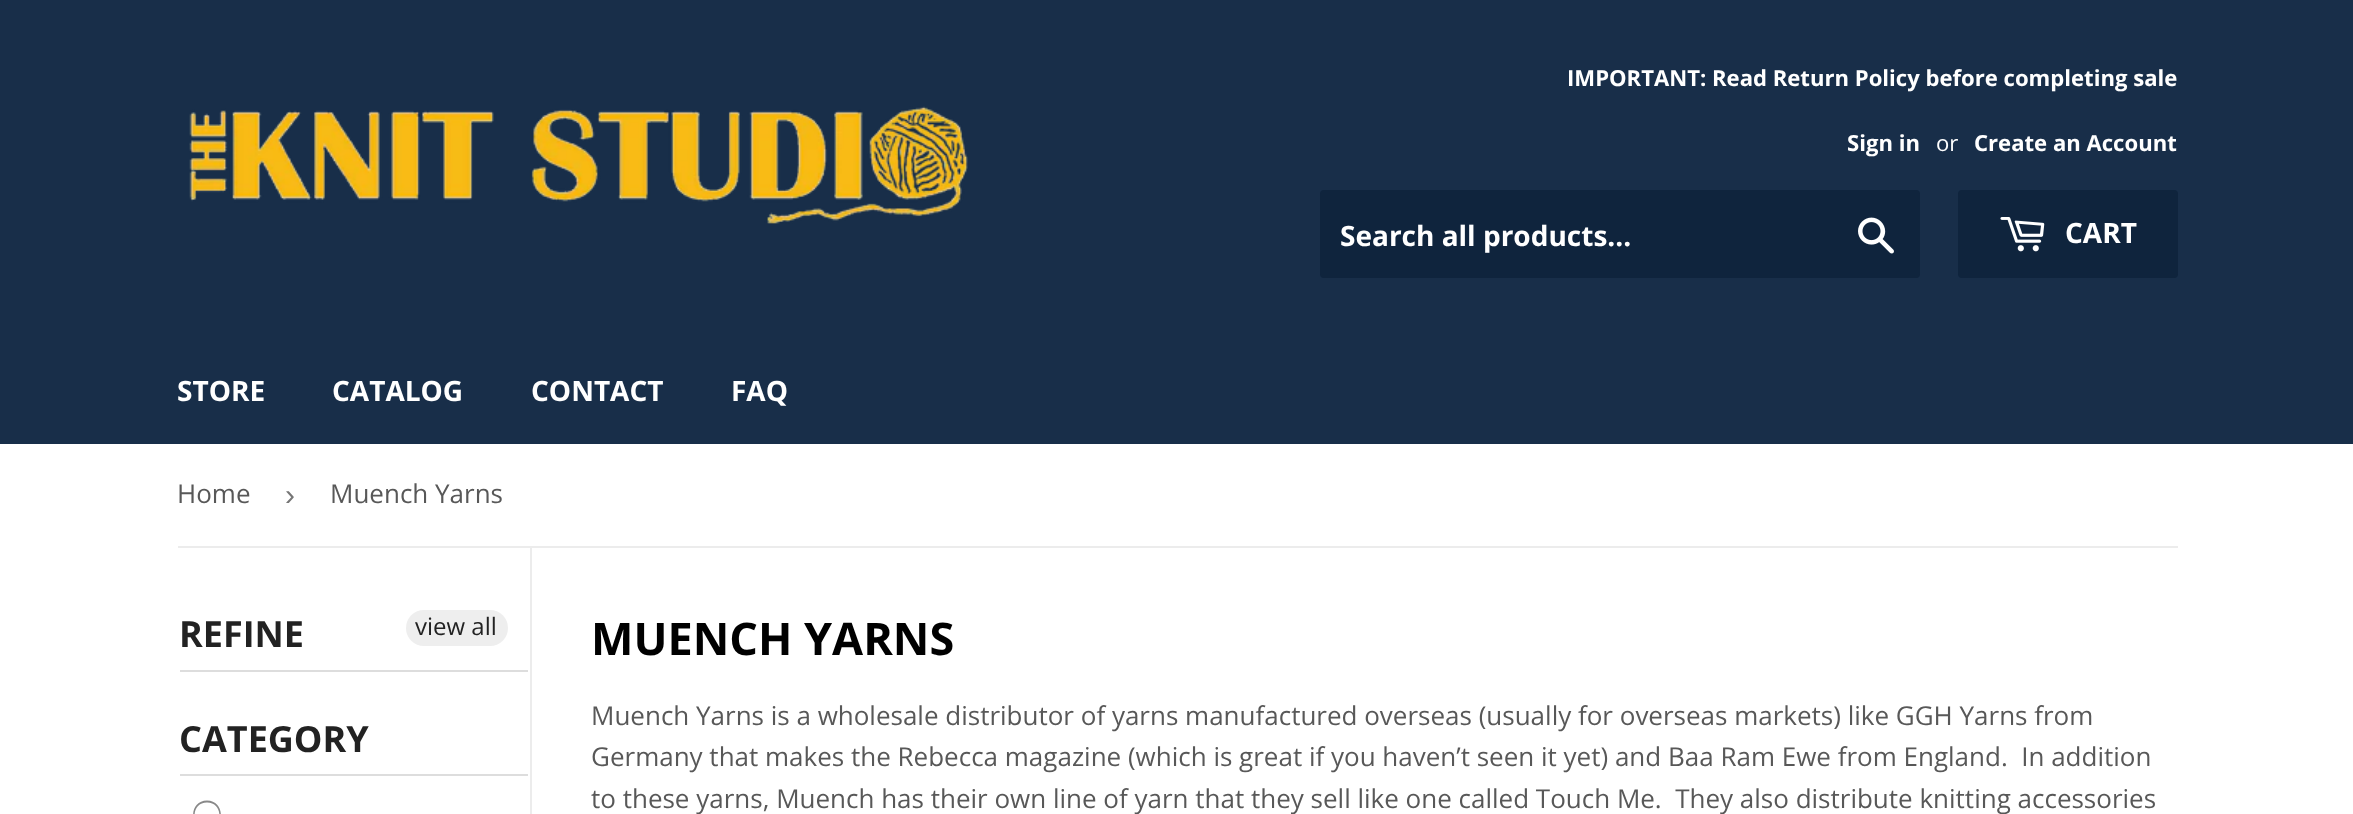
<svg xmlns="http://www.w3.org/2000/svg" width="2353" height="814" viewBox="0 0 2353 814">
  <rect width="100%" height="100%" fill="rgb(255,255,255)"/>
  <rect x="0" y="0" width="2353" height="444" fill="rgb(24,46,73)"/>
  <image x="189" y="106" width="779" height="118" href="pic1.png"/>
  <g font-family="Open Sans" font-size="22.1" font-weight="bold" fill="rgb(255,255,255)">
    <text x="1567" y="86">IMPORTANT: Read Return Policy before completing sale</text>
    <text x="1847" y="151">Sign in</text>
  </g>
  <text x="1936" y="151" font-family="Open Sans" font-size="22.1" fill="rgb(255,255,255)">or</text>
  <text x="1974" y="151" font-family="Open Sans" font-size="22.1" font-weight="bold" fill="rgb(255,255,255)">Create an Account</text>
  <rect x="1320" y="190" width="600" height="88" rx="4" fill="rgb(15,36,61)"/>
  <text x="1340" y="246" font-family="Open Sans" font-size="28" font-weight="bold" fill="rgb(255,255,255)">Search all products...</text>
  <image x="1858" y="217" width="36" height="37" href="pic2.png"/>
  <rect x="1958" y="190" width="220" height="88" rx="4" fill="rgb(15,36,61)"/>
  <image x="2000" y="217" width="45" height="35" href="pic3.png"/>
  <g font-family="Open Sans" font-size="28" font-weight="bold" fill="rgb(255,255,255)">
    <text x="2065" y="243">CART</text>
    <text x="177" y="401">STORE</text>
    <text x="332" y="401">CATALOG</text>
    <text x="531" y="401">CONTACT</text>
    <text x="731" y="401">FAQ</text>
  </g>
  <rect x="178" y="546" width="2000" height="2" fill="rgb(236,236,236)"/>
  <text x="177" y="503" font-family="Open Sans" font-size="26" fill="rgb(88,88,88)">Home</text>
  <text x="285" y="505" font-family="Liberation Sans" font-size="30" fill="rgb(118,118,118)">›</text>
  <text x="330" y="503" font-family="Open Sans" font-size="26" fill="rgb(88,88,88)">Muench Yarns</text>
  <rect x="180" y="670" width="348" height="2" fill="rgb(221,221,221)"/>
  <text x="179" y="647" font-family="Open Sans" font-size="36" font-weight="bold" fill="rgb(34,34,34)">REFINE</text>
  <rect x="406" y="610" width="102" height="36" rx="18" fill="rgb(238,238,238)"/>
  <text x="415" y="635" font-family="Open Sans" font-size="24" fill="rgb(34,34,34)">view all</text>
  <rect x="180" y="774" width="348" height="2" fill="rgb(221,221,221)"/>
  <text x="179" y="752" font-family="Open Sans" font-size="36" font-weight="bold" fill="rgb(34,34,34)">CATEGORY</text>
  <path d="M207 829C188.5 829 188.5 800.5 207 800.5C225.5 800.5 225.5 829 207 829ZM207 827.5C223.5 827.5 223.5 802.5 207 802.5C190.5 802.5 190.5 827.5 207 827.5Z" fill="rgb(136,136,136)"/>
  <rect x="530" y="548" width="2" height="266" fill="rgb(236,236,236)"/>
  <text x="591" y="655" font-family="Open Sans" font-size="45" font-weight="bold" fill="rgb(0,0,0)">MUENCH YARNS</text>
  <g font-family="Open Sans" font-size="26" fill="rgb(88,88,88)">
    <text xml:space="preserve"><tspan x="591" y="725">Muench Yarns is a wholesale distributor of yarns manufactured overseas (usually for overseas markets) like GGH Yarns from</tspan><tspan x="591" y="766">Germany that makes the Rebecca magazine (which is great if you haven’t seen it yet) and Baa Ram Ewe from England.  In addition</tspan><tspan x="591" y="808">to these yarns, Muench has their own line of yarn that they sell like one called Touch Me.  They also distribute knitting accessories</tspan></text>
  </g>
</svg>
